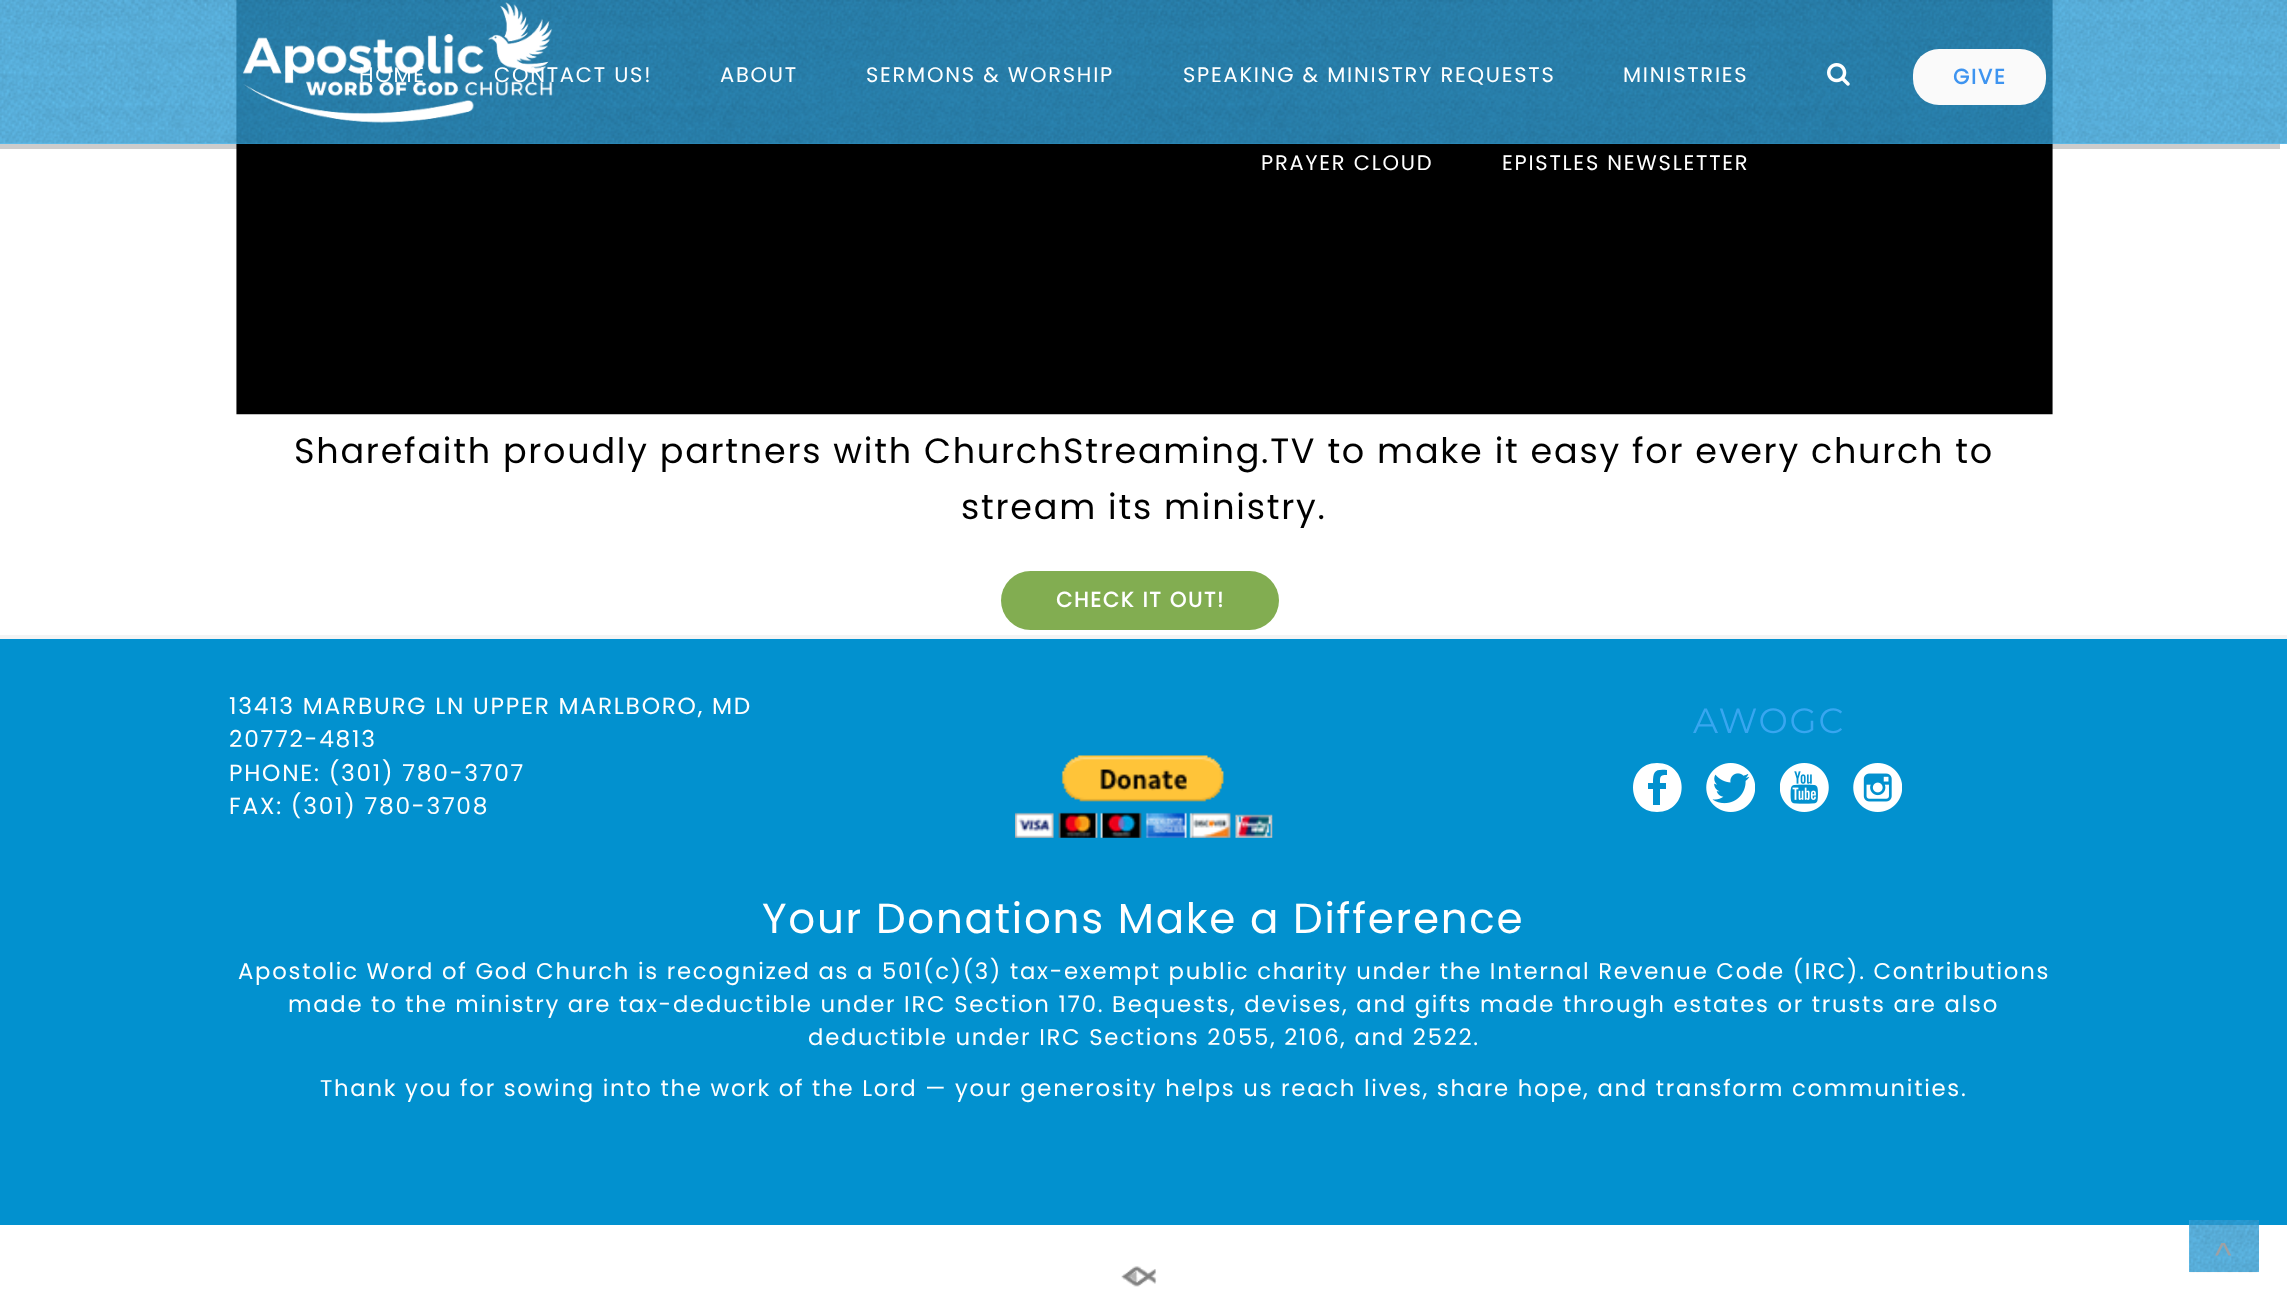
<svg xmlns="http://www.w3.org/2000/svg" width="2287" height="1299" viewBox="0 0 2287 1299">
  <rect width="100%" height="100%" fill="rgb(255,255,255)"/>
  <rect x="2189" y="1225" width="70" height="47" fill="rgb(99,195,243)"/>
  <image x="236" y="0" width="1817" height="415" href="pic4.png"/>
  <path d="M-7 5V149H2280V144H0V5Z" fill="rgba(0,0,0,0.2)"/>
  <rect x="0" y="0" width="2287" height="144" fill="rgba(57,179,240,0.79)"/>
  <image x="0" y="0" width="2287" height="144" href="pic1.png"/>
  <image x="243" y="2" width="310" height="121" href="pic2.png"/>
  <image x="1827" y="63" width="23" height="23" href="pic3.png"/>
  <g font-family="Poppins" font-size="21" letter-spacing="1.75" fill="rgb(255,255,255)">
    <text x="359" y="82">HOME</text>
    <text x="494" y="82">CONTACT US!</text>
    <text x="720" y="82">ABOUT</text>
    <text x="866" y="82">SERMONS &amp; WORSHIP</text>
    <text x="1183" y="82">SPEAKING &amp; MINISTRY REQUESTS</text>
    <text x="1623" y="82">MINISTRIES</text>
    <text x="1261" y="170">PRAYER CLOUD</text>
    <text x="1502" y="170">EPISTLES NEWSLETTER</text>
  </g>
  <rect x="1913" y="49" width="133" height="56" rx="26" fill="rgb(250,250,250)"/>
  <text x="1953" y="84" font-family="Poppins" font-size="21" font-weight="bold" letter-spacing="1.75" fill="rgb(62,148,240)">GIVE</text>
  <g font-family="Poppins" font-size="35" letter-spacing="1.75" fill="rgb(0,0,0)">
    <text x="294" y="463">Sharefaith proudly partners with ChurchStreaming.TV to make it easy for every church to</text>
    <text x="961" y="519">stream its ministry.</text>
  </g>
  <rect x="1001" y="571" width="278" height="59" rx="29.5" fill="rgb(130,173,81)"/>
  <text x="1056" y="607" font-family="Poppins" font-size="21" font-weight="bold" letter-spacing="1.75" fill="rgb(255,255,255)">CHECK IT OUT!</text>
  <rect x="0" y="635" width="2287" height="4" fill="rgb(244,244,244)"/>
  <rect x="0" y="639" width="2287" height="586" fill="rgb(2,145,207)"/>
  <rect x="2189" y="1220" width="70" height="5" fill="rgb(45,172,233)"/>
  <g font-family="Poppins" font-size="23.3" letter-spacing="1.75" fill="rgb(255,255,255)">
    <text>
      <tspan x="229" y="714">13413 MARBURG LN UPPER MARLBORO, MD</tspan>
      <tspan x="229" y="747">20772-4813</tspan>
      <tspan x="229" y="781">PHONE: (301) 780-3707</tspan>
      <tspan x="229" y="814">FAX: (301) 780-3708</tspan>
    </text>
  </g>
  <text x="1693" y="733" font-family="Montserrat" font-size="35" letter-spacing="1.75" fill="rgb(56,166,240)">AWOGC</text>
  <path d="M1657 763C1625 763 1625 812 1657 812C1690 812 1690 763 1657 763ZM1667 775C1660 775 1660 776 1660 783H1666V789H1660V805H1653V789H1648V783H1653C1653 771 1655 769 1667 770Z" fill="rgb(255,255,255)"/>
  <image x="1706" y="763" width="49" height="49" href="pic5.png"/>
  <image x="1780" y="763" width="49" height="49" href="pic6.png"/>
  <image x="1853" y="763" width="49" height="49" href="pic7.png"/>
  <image x="1015" y="755" width="258" height="83" href="pic8.png"/>
  <text x="762" y="933" font-family="Poppins" font-size="42" letter-spacing="1.75" fill="rgb(255,255,255)">Your Donations Make a Difference</text>
  <g font-family="Poppins" font-size="22.75" letter-spacing="1.75" fill="rgb(255,255,255)">
    <text x="238" y="979">Apostolic Word of God Church is recognized as a 501(c)(3) tax-exempt public charity under the Internal Revenue Code (IRC). Contributions</text>
    <text x="288" y="1012">made to the ministry are tax-deductible under IRC Section 170. Bequests, devises, and gifts made through estates or trusts are also</text>
    <text x="808" y="1045">deductible under IRC Sections 2055, 2106, and 2522.</text>
    <text x="320" y="1096">Thank you for sowing into the work of the Lord — your generosity helps us reach lives, share hope, and transform communities.</text>
  </g>
  <image x="1121" y="1266" width="36" height="21" href="pic9.png"/>
  <image x="2189" y="1220" width="70" height="53" href="pic10.png"/>
  <text x="2215" y="1267" font-family="Liberation Sans" font-size="35" letter-spacing="1.75" fill="rgb(159,160,163)">^</text>
</svg>
